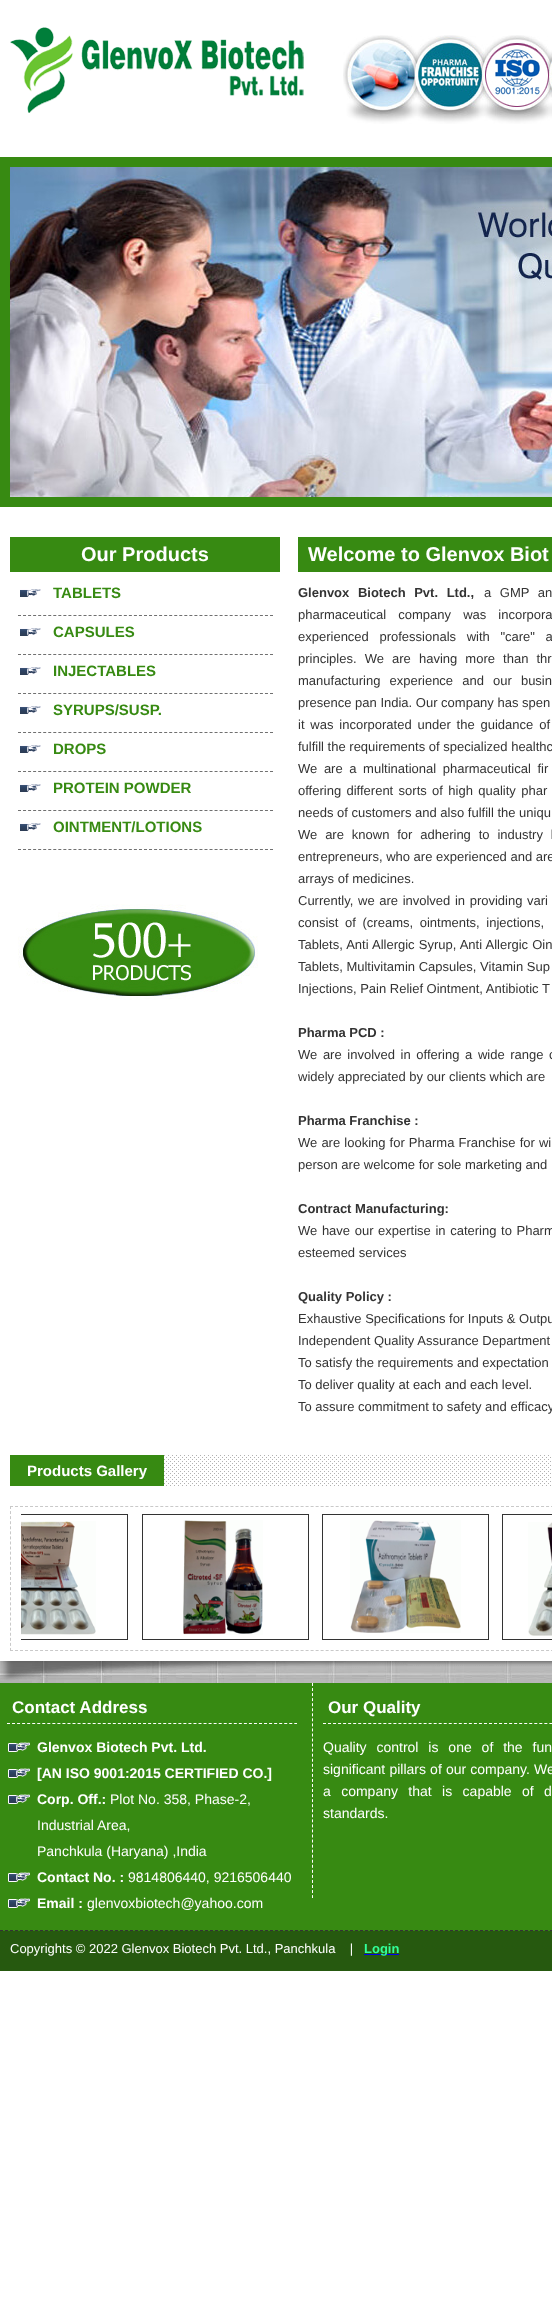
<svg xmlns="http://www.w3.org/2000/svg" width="552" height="2322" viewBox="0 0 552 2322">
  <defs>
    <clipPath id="clip1"><rect x="21" y="1512" width="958" height="138"/></clipPath>
  </defs>
  <rect width="100%" height="100%" fill="rgb(255,255,255)"/>
  <image x="0" y="1661" width="552" height="22" href="pic1.png"/>
  <image x="10" y="27" width="294" height="86" href="pic2.png"/>
  <image x="343" y="35" width="209" height="89" href="pic3.png"/>
  <rect x="0" y="507" width="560" height="1154" fill="rgba(0,0,0,0.2)" filter="blur(2.5px)"/>
  <rect x="5" y="162" width="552" height="340" fill="none" stroke="rgb(55,138,18)" stroke-width="10"/>
  <image x="10" y="167" width="542" height="330" href="pic4.png"/>
  <rect x="0" y="507" width="552" height="1154" fill="rgb(255,255,255)"/>
  <rect x="10" y="537" width="270" height="35" fill="rgb(55,138,18)"/>
  <text x="81" y="561" font-family="Liberation Sans" font-size="20" font-weight="bold" fill="rgb(255,255,255)">Our Products</text>
  <image x="20" y="589" width="21" height="8" href="pic5.png"/>
  <path d="M18 615.5H273" fill="none" stroke="rgb(112,112,112)" stroke-dasharray="3 2.04"/>
  <text x="53" y="598" font-family="Liberation Sans" font-size="15" font-weight="bold" fill="rgb(55,138,18)">TABLETS</text>
  <image x="20" y="628" width="21" height="8" href="pic5.png"/>
  <path d="M18 654.5H273" fill="none" stroke="rgb(112,112,112)" stroke-dasharray="3 2.04"/>
  <text x="53" y="637" font-family="Liberation Sans" font-size="15" font-weight="bold" fill="rgb(55,138,18)">CAPSULES</text>
  <image x="20" y="667" width="21" height="8" href="pic5.png"/>
  <path d="M18 693.5H273" fill="none" stroke="rgb(112,112,112)" stroke-dasharray="3 2.04"/>
  <text x="53" y="676" font-family="Liberation Sans" font-size="15" font-weight="bold" fill="rgb(55,138,18)">INJECTABLES</text>
  <image x="20" y="706" width="21" height="8" href="pic5.png"/>
  <path d="M18 732.5H273" fill="none" stroke="rgb(112,112,112)" stroke-dasharray="3 2.04"/>
  <text x="53" y="715" font-family="Liberation Sans" font-size="15" font-weight="bold" fill="rgb(55,138,18)">SYRUPS/SUSP.</text>
  <image x="20" y="745" width="21" height="8" href="pic5.png"/>
  <path d="M18 771.5H273" fill="none" stroke="rgb(112,112,112)" stroke-dasharray="3 2.04"/>
  <text x="53" y="754" font-family="Liberation Sans" font-size="15" font-weight="bold" fill="rgb(55,138,18)">DROPS</text>
  <image x="20" y="784" width="21" height="8" href="pic5.png"/>
  <path d="M18 810.5H273" fill="none" stroke="rgb(112,112,112)" stroke-dasharray="3 2.04"/>
  <text x="53" y="793" font-family="Liberation Sans" font-size="15" font-weight="bold" fill="rgb(55,138,18)">PROTEIN POWDER</text>
  <image x="20" y="823" width="21" height="8" href="pic5.png"/>
  <path d="M18 849.5H273" fill="none" stroke="rgb(112,112,112)" stroke-dasharray="3 2.04"/>
  <text x="53" y="832" font-family="Liberation Sans" font-size="15" font-weight="bold" fill="rgb(55,138,18)">OINTMENT/LOTIONS</text>
  <image x="18" y="904" width="240" height="96" href="pic6.png"/>
  <rect x="298" y="537" width="254" height="35" fill="rgb(55,138,18)"/>
  <text x="308" y="561" font-family="Liberation Sans" font-size="20" font-weight="bold" fill="rgb(255,255,255)">Welcome to Glenvox Biot</text>
  <text x="298" y="597" word-spacing="5" font-family="Liberation Sans" font-size="13" font-weight="bold" fill="rgb(51,51,51)">Glenvox Biotech Pvt. Ltd.,</text>
  <g font-family="Liberation Sans" font-size="13" fill="rgb(51,51,51)">
    <text x="484" y="597" word-spacing="5">a GMP an</text>
    <text>
      <tspan x="298" y="619" word-spacing="8.5">pharmaceutical company was incorpora</tspan>
      <tspan x="298" y="641" word-spacing="7">experienced professionals with "care" a</tspan>
      <tspan x="298" y="663" word-spacing="4.5">principles. We are having more than thr</tspan>
      <tspan x="298" y="685" word-spacing="5.5">manufacturing experience and our busin</tspan>
      <tspan x="298" y="707">presence pan India. Our company has spen</tspan>
      <tspan x="298" y="729" word-spacing="2.25">it was incorporated under the guidance of</tspan>
      <tspan x="298" y="751">fulfill the requirements of specialized healthc</tspan>
      <tspan x="298" y="773" word-spacing="3">We are a multinational pharmaceutical fir</tspan>
      <tspan x="298" y="795" word-spacing="1.75">offering different sorts of high quality phar</tspan>
      <tspan x="298" y="817">needs of customers and also fulfill the uniqu</tspan>
      <tspan x="298" y="839" word-spacing="4.25">We are known for adhering to industry l</tspan>
      <tspan x="298" y="861">entrepreneurs, who are experienced and are</tspan>
      <tspan x="298" y="883">arrays of medicines.</tspan>
      <tspan x="298" y="905" word-spacing="1">Currently, we are involved in providing vari</tspan>
      <tspan x="298" y="927" word-spacing="3">consist of (creams, ointments, injections,</tspan>
      <tspan x="298" y="949" word-spacing="0.5">Tablets, Anti Allergic Syrup, Anti Allergic Oin</tspan>
      <tspan x="298" y="971">Tablets, Multivitamin Capsules, Vitamin Sup</tspan>
      <tspan x="298" y="993">Injections, Pain Relief Ointment, Antibiotic T</tspan>
    </text>
  </g>
  <text x="298" y="1037" font-family="Liberation Sans" font-size="13" font-weight="bold" fill="rgb(51,51,51)">Pharma PCD :</text>
  <g font-family="Liberation Sans" font-size="13" fill="rgb(51,51,51)">
    <text>
      <tspan x="298" y="1059" word-spacing="2">We are involved in offering a wide range o</tspan>
      <tspan x="298" y="1081">widely appreciated by our clients which are</tspan>
    </text>
  </g>
  <text x="298" y="1125" font-family="Liberation Sans" font-size="13" font-weight="bold" fill="rgb(51,51,51)">Pharma Franchise :</text>
  <g font-family="Liberation Sans" font-size="13" fill="rgb(51,51,51)">
    <text>
      <tspan x="298" y="1147" word-spacing="0.5">We are looking for Pharma Franchise for wi</tspan>
      <tspan x="298" y="1169">person are welcome for sole marketing and</tspan>
    </text>
  </g>
  <text x="298" y="1213" font-family="Liberation Sans" font-size="13" font-weight="bold" fill="rgb(51,51,51)">Contract Manufacturing:</text>
  <g font-family="Liberation Sans" font-size="13" fill="rgb(51,51,51)">
    <text>
      <tspan x="298" y="1235" word-spacing="1">We have our expertise in catering to Pharm</tspan>
      <tspan x="298" y="1257">esteemed services</tspan>
    </text>
  </g>
  <text x="298" y="1301" font-family="Liberation Sans" font-size="13" font-weight="bold" fill="rgb(51,51,51)">Quality Policy :</text>
  <g font-family="Liberation Sans" font-size="13" fill="rgb(51,51,51)">
    <text>
      <tspan x="298" y="1323">Exhaustive Specifications for Inputs &amp; Outpu</tspan>
      <tspan x="298" y="1345">Independent Quality Assurance Department</tspan>
      <tspan x="298" y="1367">To satisfy the requirements and expectation</tspan>
      <tspan x="298" y="1389">To deliver quality at each and each level.</tspan>
      <tspan x="298" y="1411">To assure commitment to safety and efficacy</tspan>
    </text>
  </g>
  <image x="164" y="1455" width="387" height="31" href="pic7.png"/>
  <rect x="10" y="1455" width="154" height="31" fill="rgb(55,138,18)"/>
  <text x="27" y="1476" font-family="Liberation Sans" font-size="15" font-weight="bold" fill="rgb(255,255,255)">Products Gallery</text>
  <path d="M10 1506.5H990" fill="none" stroke="rgb(201,201,201)" stroke-dasharray="3 2.01"/>
  <path d="M10 1650.5H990" fill="none" stroke="rgb(201,201,201)" stroke-dasharray="3 2.01"/>
  <path d="M10.5 1506V1651" fill="none" stroke="rgb(201,201,201)" stroke-dasharray="3 2.07"/>
  <g clip-path="url(#clip1)">
    <rect x="-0.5" y="1514.5" width="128" height="125" fill="none" stroke="rgb(51,51,51)"/>
  </g>
  <rect x="142.5" y="1514.5" width="166" height="125" fill="none" stroke="rgb(51,51,51)"/>
  <rect x="322.5" y="1514.5" width="166" height="125" fill="none" stroke="rgb(51,51,51)"/>
  <rect x="502.5" y="1514.5" width="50" height="125" fill="none" stroke="rgb(51,51,51)"/>
  <image x="21" y="1521" width="75" height="114" href="pic8.png"/>
  <image x="183" y="1520" width="80" height="115" href="pic9.png"/>
  <image x="350" y="1520" width="111" height="113" href="pic10.png"/>
  <image x="528" y="1522" width="24" height="114" href="pic11.png"/>
  <image x="1" y="1661" width="551" height="20" href="pic12.png"/>
  <rect x="0" y="1683" width="552" height="248" fill="rgb(55,138,18)"/>
  <path d="M0 1930.5H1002" fill="none" stroke="rgb(51,51,51)" stroke-dasharray="3 2"/>
  <path d="M7 1723.5H297" fill="none" stroke="rgb(255,255,255)" stroke-dasharray="3 2.04"/>
  <text x="12" y="1713" font-family="Liberation Sans" font-size="17" font-weight="bold" fill="rgb(255,255,255)">Contact Address</text>
  <image x="8" y="1742" width="22" height="10" href="pic13.png"/>
  <text x="37" y="1752" font-family="Liberation Sans" font-size="14" font-weight="bold" fill="rgb(255,255,255)">Glenvox Biotech Pvt. Ltd.</text>
  <image x="8" y="1768" width="22" height="10" href="pic13.png"/>
  <text x="37" y="1778" font-family="Liberation Sans" font-size="14" font-weight="bold" fill="rgb(255,255,255)">[AN ISO 9001:2015 CERTIFIED CO.]</text>
  <image x="8" y="1794" width="22" height="10" href="pic13.png"/>
  <text x="37" y="1804" font-family="Liberation Sans" font-size="14" font-weight="bold" fill="rgb(255,255,255)">Corp. Off.:</text>
  <g font-family="Liberation Sans" font-size="14" fill="rgb(255,255,255)">
    <text x="110" y="1804">Plot No. 358, Phase-2,</text>
    <text>
      <tspan x="37" y="1830">Industrial Area,</tspan>
      <tspan x="37" y="1856">Panchkula (Haryana) ,India</tspan>
    </text>
  </g>
  <image x="8" y="1872" width="22" height="10" href="pic13.png"/>
  <text x="37" y="1882" font-family="Liberation Sans" font-size="14" font-weight="bold" fill="rgb(255,255,255)">Contact No. :</text>
  <text x="128" y="1882" font-family="Liberation Sans" font-size="14" fill="rgb(255,255,255)">9814806440, 9216506440</text>
  <image x="8" y="1898" width="22" height="10" href="pic13.png"/>
  <text x="37" y="1908" font-family="Liberation Sans" font-size="14" font-weight="bold" fill="rgb(255,255,255)">Email :</text>
  <text x="87" y="1908" font-family="Liberation Sans" font-size="14" fill="rgb(255,255,255)">glenvoxbiotech@yahoo.com</text>
  <path d="M312.5 1683V1898" fill="none" stroke="rgb(255,255,255)" stroke-dasharray="3 2.05"/>
  <path d="M323 1723.5H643" fill="none" stroke="rgb(255,255,255)" stroke-dasharray="3 2.03"/>
  <text x="328" y="1713" font-family="Liberation Sans" font-size="17" font-weight="bold" fill="rgb(255,255,255)">Our Quality</text>
  <g font-family="Liberation Sans" font-size="14" fill="rgb(255,255,255)">
    <text>
      <tspan x="323" y="1752" word-spacing="6">Quality control is one of the fun</tspan>
      <tspan x="323" y="1774" word-spacing="0.25">significant pillars of our company. We</tspan>
      <tspan x="323" y="1796" word-spacing="6.5">a company that is capable of d</tspan>
      <tspan x="323" y="1818">standards.</tspan>
    </text>
  </g>
  <rect x="0" y="1931" width="552" height="40" fill="rgb(38,89,15)"/>
  <text x="10" y="1953" font-family="Liberation Sans" font-size="13" fill="rgb(255,255,255)" xml:space="preserve">Copyrights © 2022 Glenvox Biotech Pvt. Ltd., Panchkula    |</text>
  <rect x="364" y="1954" width="35" height="1" fill="rgb(0,0,238)"/>
  <text x="364" y="1953" font-family="Liberation Sans" font-size="13" font-weight="bold" fill="rgb(51,255,153)">Login</text>
</svg>
